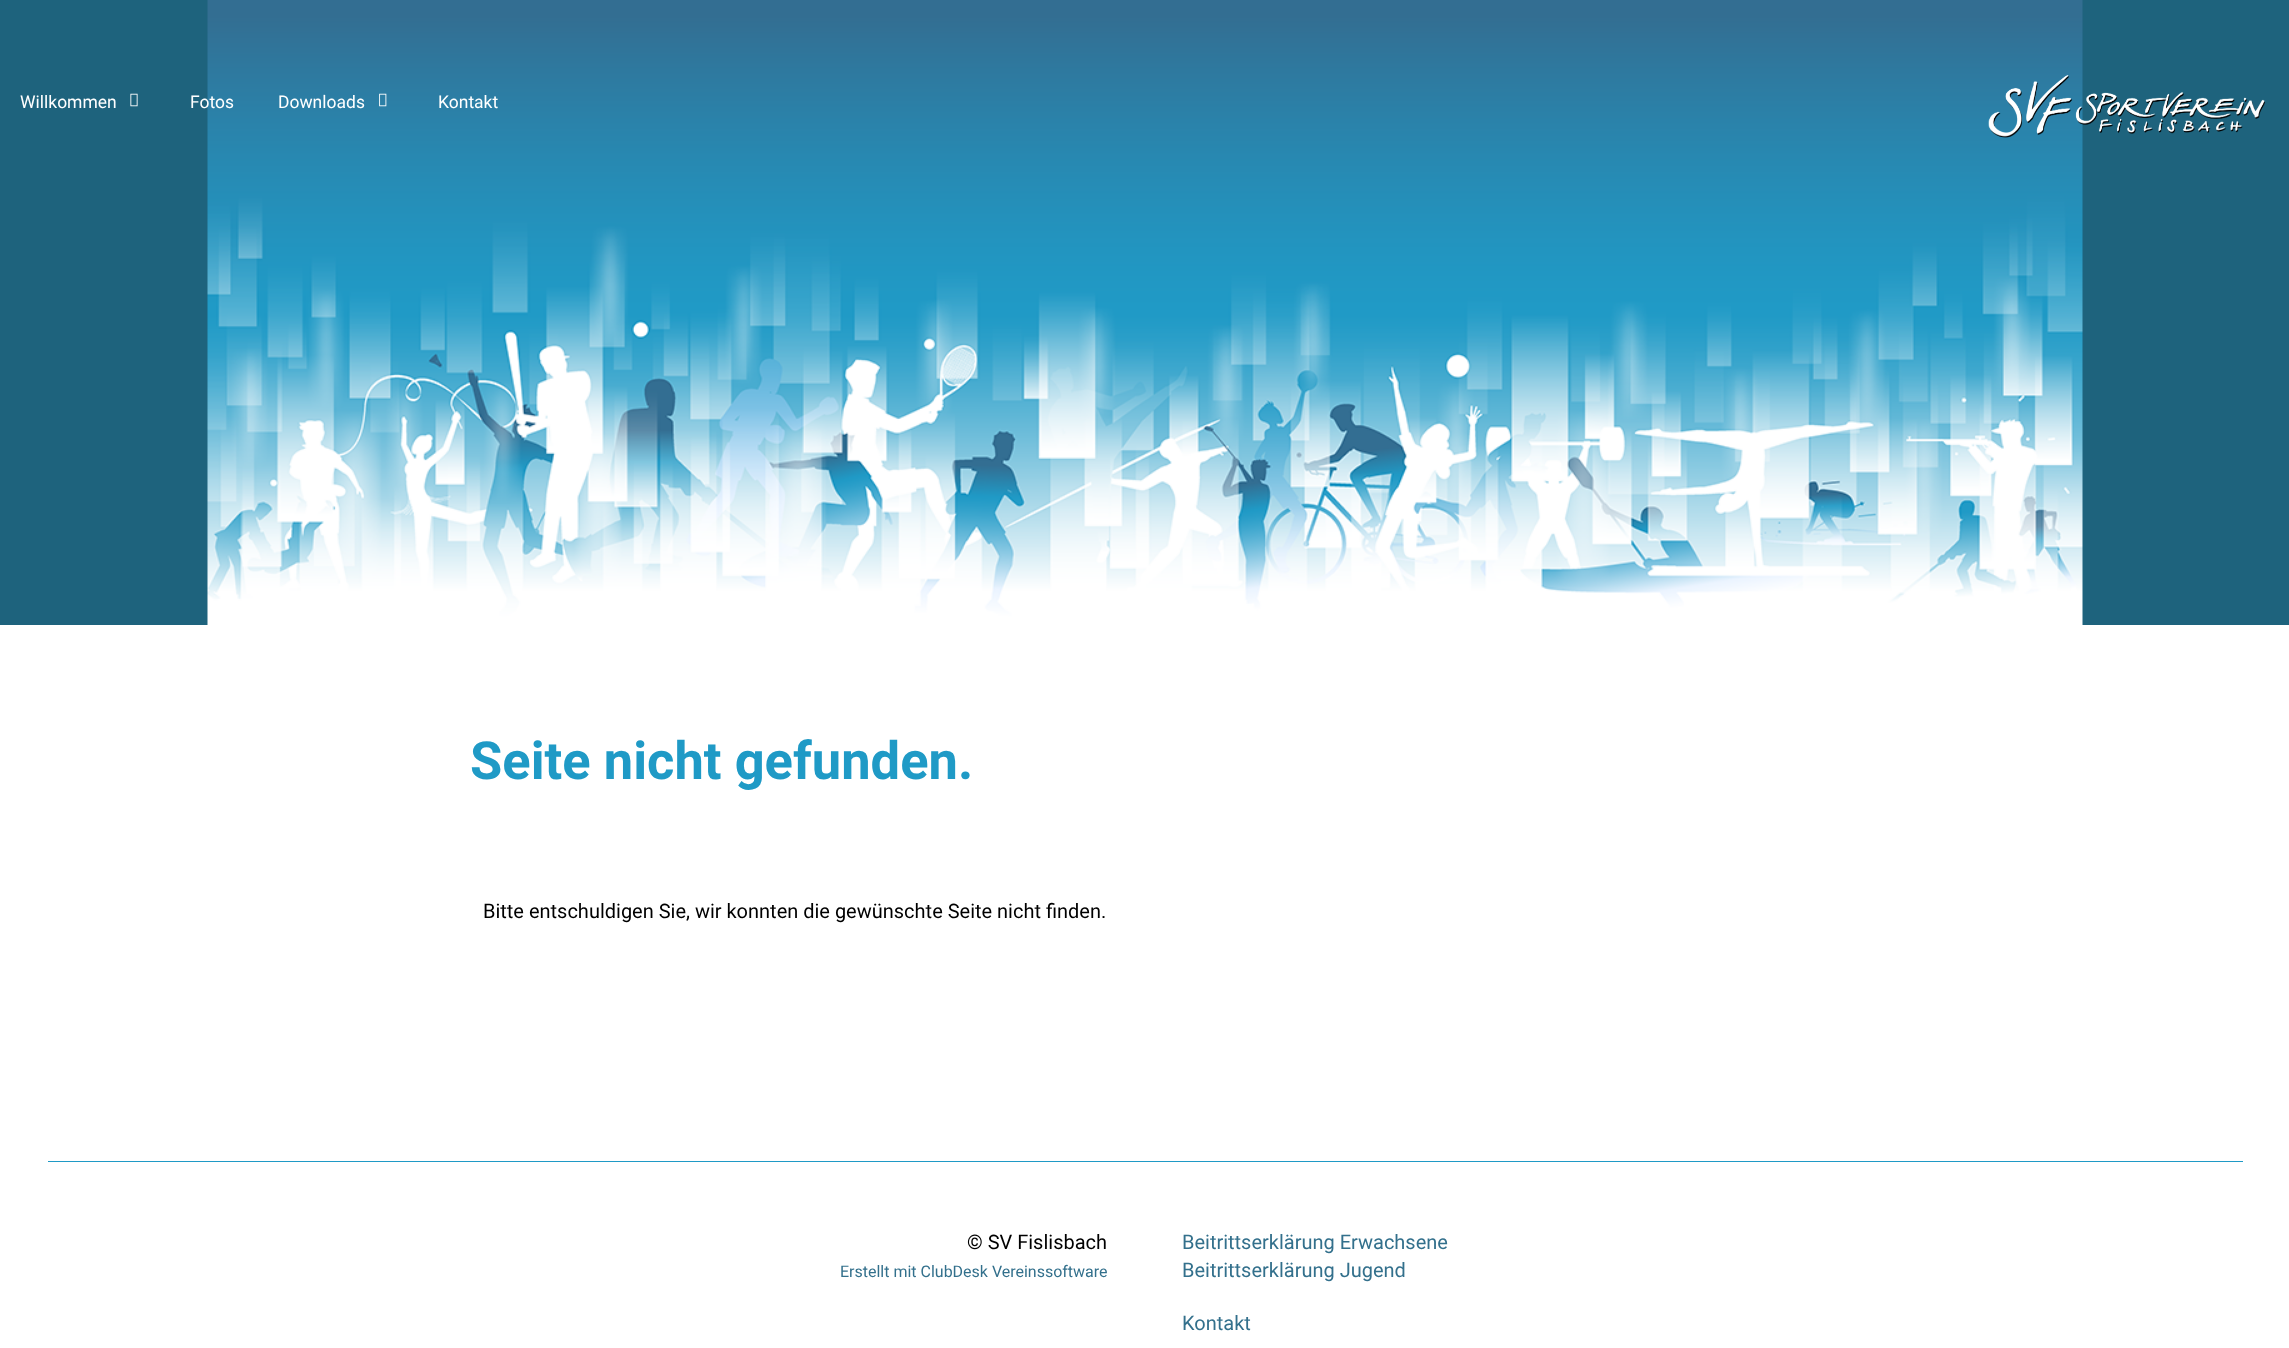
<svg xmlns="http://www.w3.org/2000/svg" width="2289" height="1348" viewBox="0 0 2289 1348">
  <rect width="100%" height="100%" fill="rgb(255,255,255)"/>
  <rect x="0" y="0" width="2289" height="625" fill="rgb(30,99,125)"/>
  <text x="20" y="108" font-family="Roboto" font-size="17.5" fill="rgb(255,255,255)">Willkommen</text>
  <image x="130" y="93" width="8" height="14" href="pic1.png"/>
  <image x="207" y="0" width="1876" height="625" href="pic4.png"/>
  <g font-family="Roboto" font-size="17.5" fill="rgb(255,255,255)">
    <text x="190" y="108">Fotos</text>
    <text x="278" y="108">Downloads</text>
  </g>
  <image x="379" y="93" width="8" height="14" href="pic2.png"/>
  <text x="438" y="108" font-family="Roboto" font-size="17.5" fill="rgb(255,255,255)">Kontakt</text>
  <image x="1988" y="75" width="277" height="63" href="pic3.png"/>
  <text x="470" y="779" font-family="Roboto" font-size="52.5" font-weight="bold" fill="rgb(31,154,198)">Seite nicht gefunden.</text>
  <text x="483" y="918" font-family="Roboto" font-size="20" fill="rgb(0,0,0)">Bitte entschuldigen Sie, wir konnten die gewünschte Seite nicht finden.</text>
  <rect x="48" y="1161" width="2195" height="1" fill="rgb(31,154,198)"/>
  <text x="967" y="1249" font-family="Roboto" font-size="20" fill="rgb(0,0,0)">© SV Fislisbach</text>
  <text x="840" y="1277" font-family="Roboto" font-size="16" fill="rgb(51,112,140)">Erstellt mit ClubDesk Vereinssoftware</text>
  <g font-family="Roboto" font-size="20" fill="rgb(51,112,140)">
    <text>
      <tspan x="1182" y="1249">Beitrittserklärung Erwachsene</tspan>
      <tspan x="1182" y="1277">Beitrittserklärung Jugend</tspan>
    </text>
    <text x="1182" y="1330">Kontakt</text>
  </g>
</svg>
